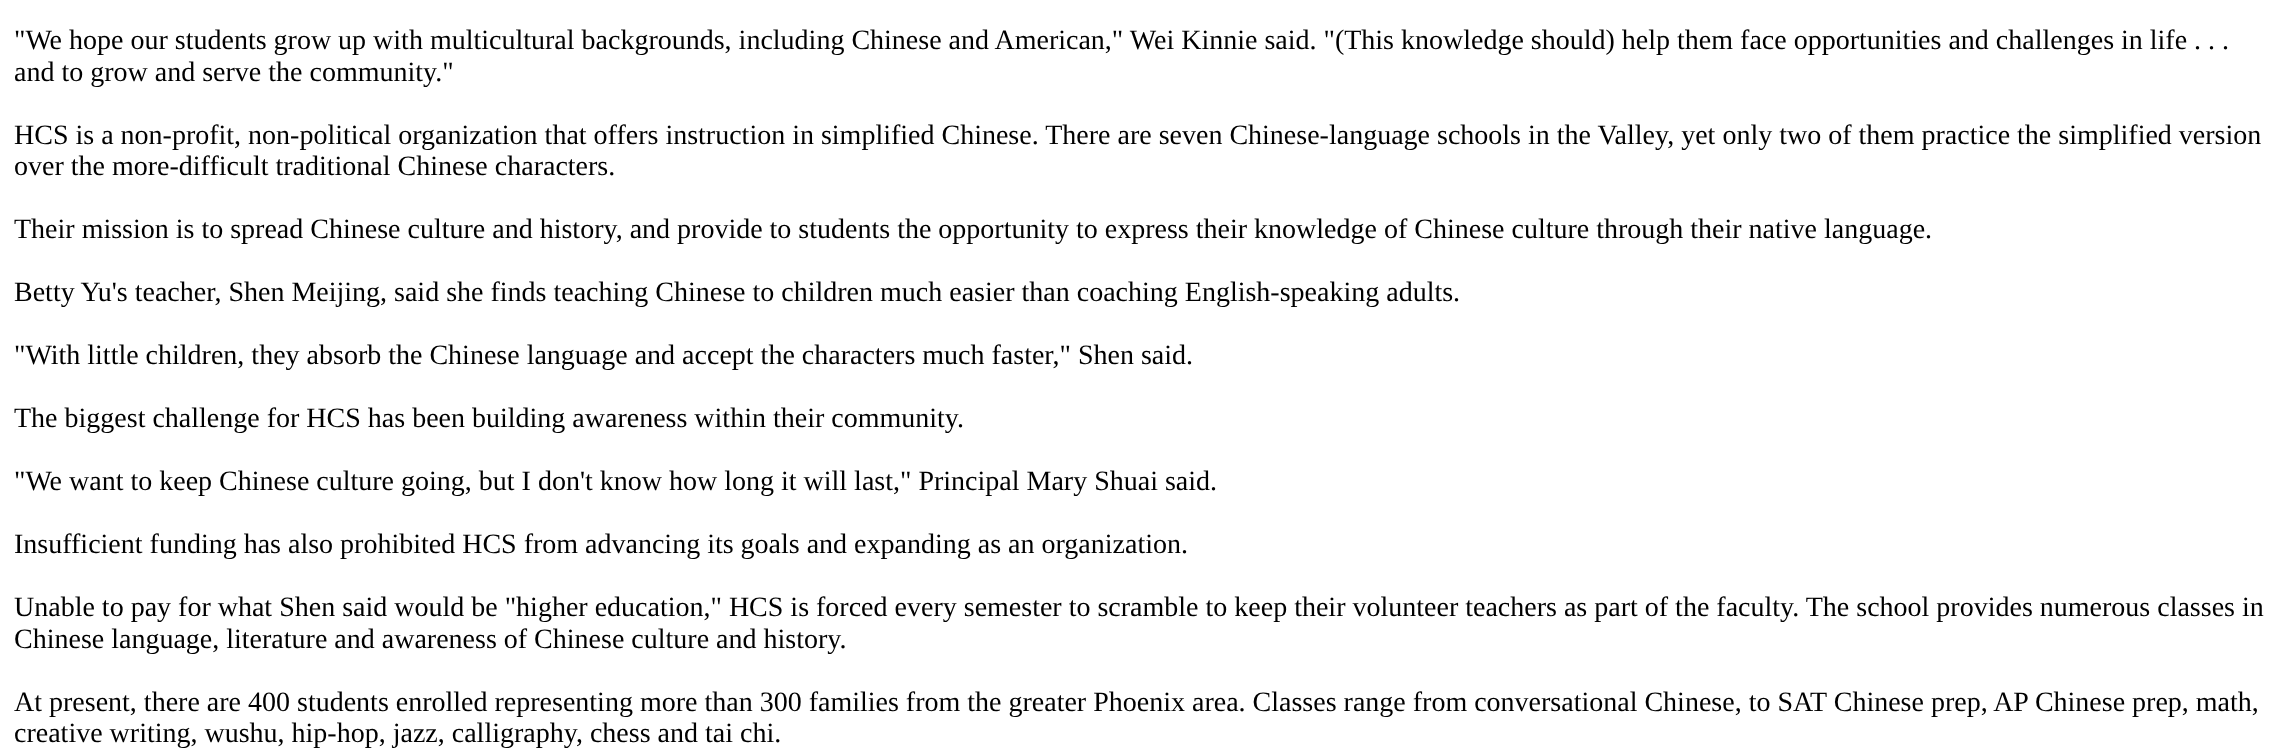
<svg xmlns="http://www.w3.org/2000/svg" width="2277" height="751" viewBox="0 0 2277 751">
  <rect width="100%" height="100%" fill="rgb(255,255,255)"/>
  <g font-family="Liberation Serif" font-size="28" fill="rgb(0,0,0)">
    <text>
      <tspan x="14" y="49">"We hope our students grow up with multicultural backgrounds, including Chinese and American," Wei Kinnie said. "(This knowledge should) help them face opportunities and challenges in life . . .</tspan>
      <tspan x="14" y="81">and to grow and serve the community."</tspan>
    </text>
    <text>
      <tspan x="14" y="144">HCS is a non-profit, non-political organization that offers instruction in simplified Chinese. There are seven Chinese-language schools in the Valley, yet only two of them practice the simplified version</tspan>
      <tspan x="14" y="175">over the more-difficult traditional Chinese characters.</tspan>
    </text>
    <text x="14" y="238">Their mission is to spread Chinese culture and history, and provide to students the opportunity to express their knowledge of Chinese culture through their native language.</text>
    <text x="14" y="301">Betty Yu's teacher, Shen Meijing, said she finds teaching Chinese to children much easier than coaching English-speaking adults.</text>
    <text x="14" y="364">"With little children, they absorb the Chinese language and accept the characters much faster," Shen said.</text>
    <text x="14" y="427">The biggest challenge for HCS has been building awareness within their community.</text>
    <text x="14" y="490">"We want to keep Chinese culture going, but I don't know how long it will last," Principal Mary Shuai said.</text>
    <text x="14" y="553">Insufficient funding has also prohibited HCS from advancing its goals and expanding as an organization.</text>
    <text>
      <tspan x="14" y="616">Unable to pay for what Shen said would be "higher education," HCS is forced every semester to scramble to keep their volunteer teachers as part of the faculty. The school provides numerous classes in</tspan>
      <tspan x="14" y="648">Chinese language, literature and awareness of Chinese culture and history.</tspan>
    </text>
    <text>
      <tspan x="14" y="711">At present, there are 400 students enrolled representing more than 300 families from the greater Phoenix area. Classes range from conversational Chinese, to SAT Chinese prep, AP Chinese prep, math,</tspan>
      <tspan x="14" y="742">creative writing, wushu, hip-hop, jazz, calligraphy, chess and tai chi.</tspan>
    </text>
  </g>
</svg>
